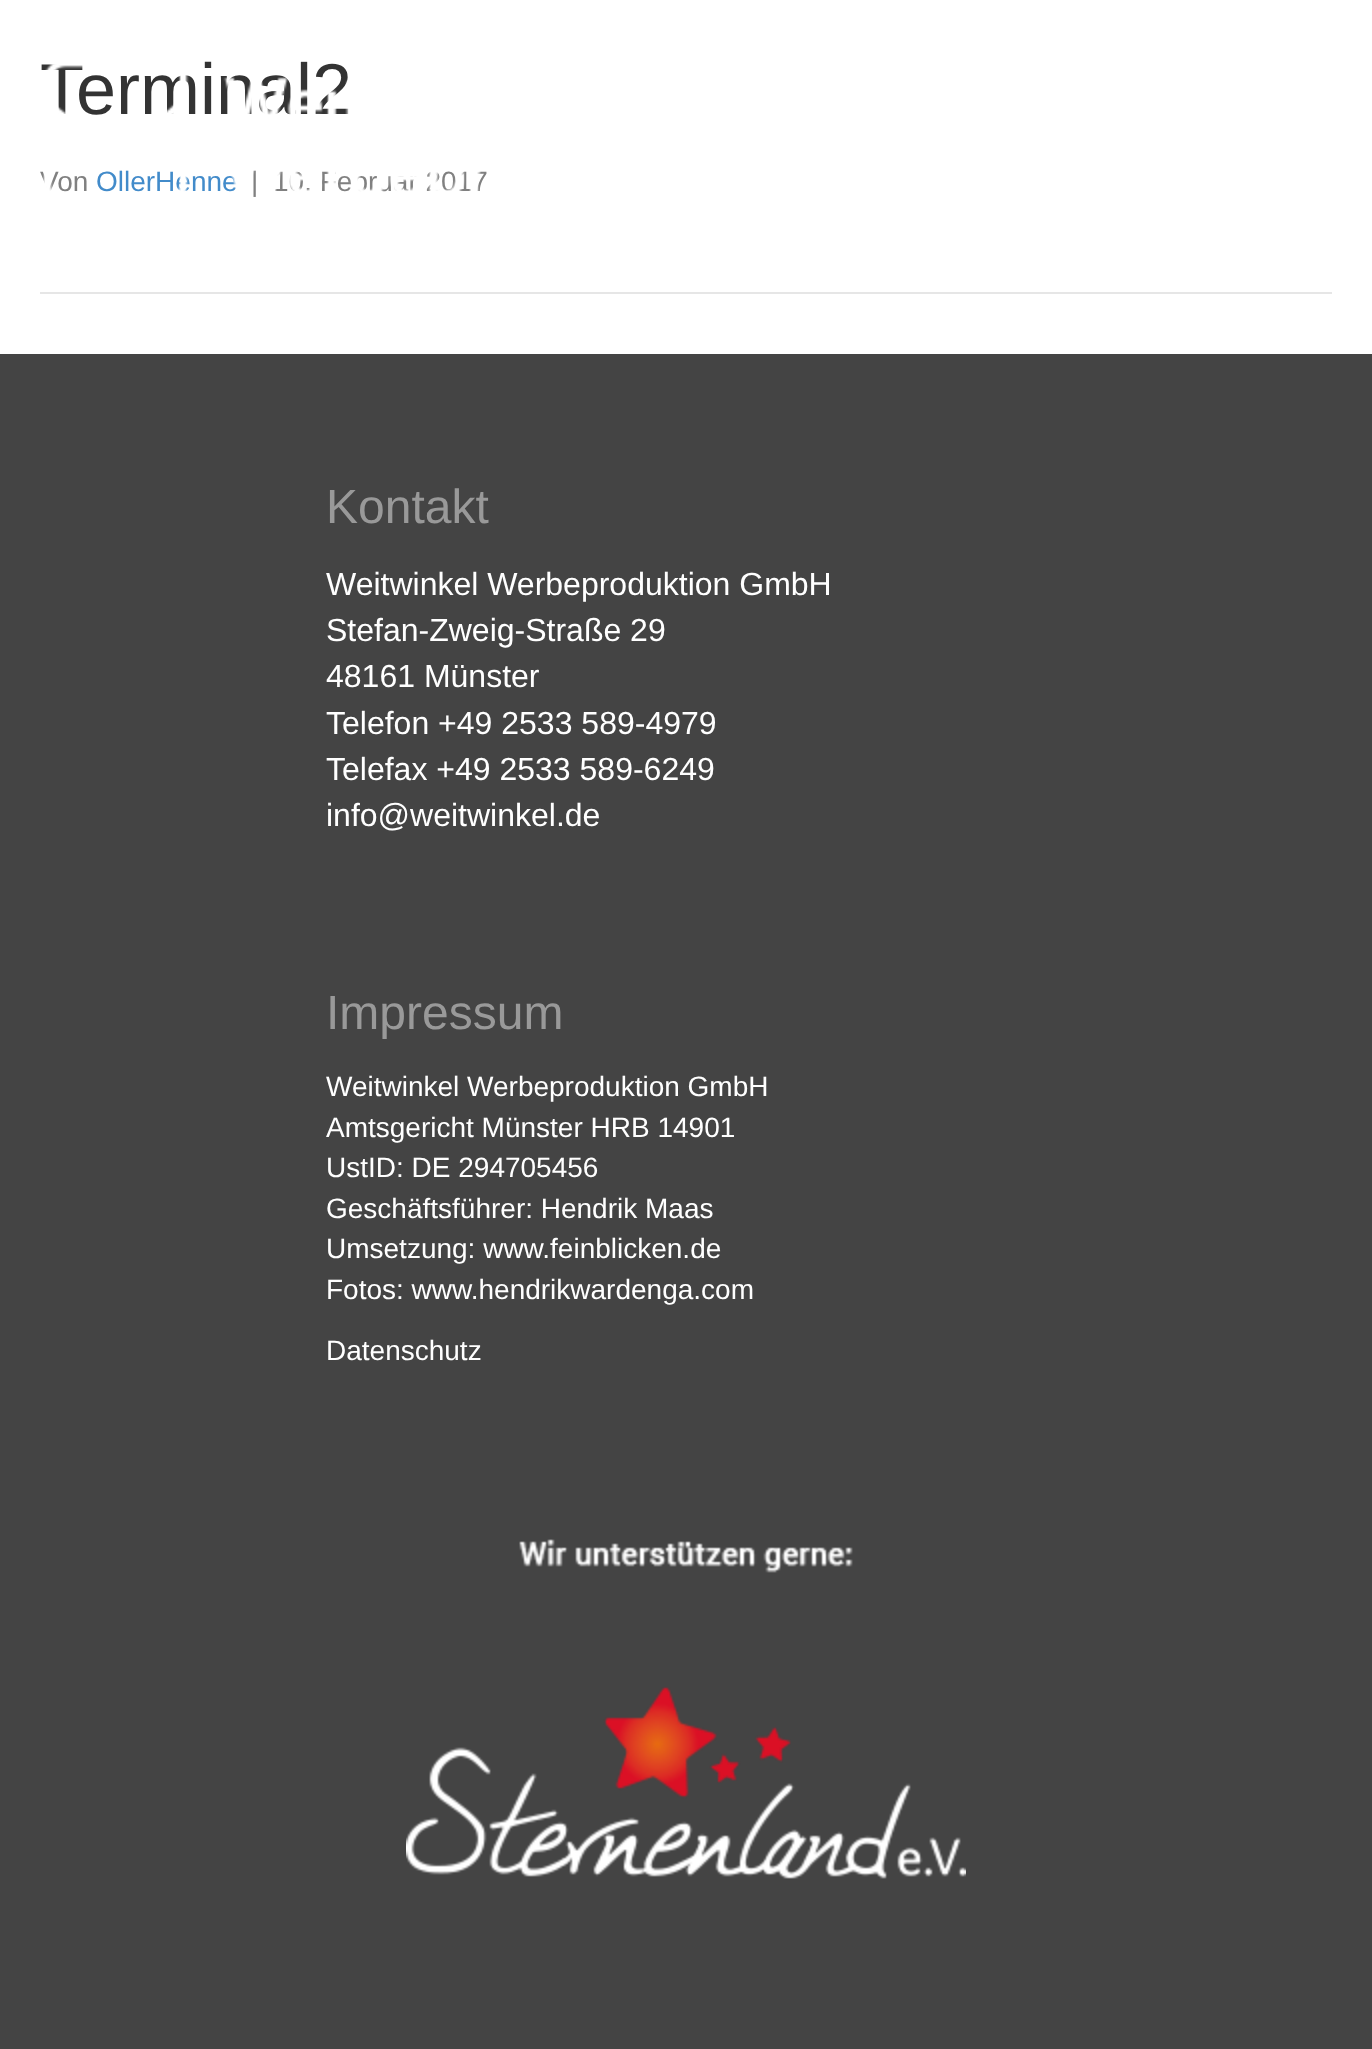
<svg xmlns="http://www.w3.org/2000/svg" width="1372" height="2049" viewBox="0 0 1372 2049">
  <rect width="100%" height="100%" fill="rgb(255,255,255)"/>
  <text x="40" y="114" font-family="Liberation Sans" font-size="72" fill="rgb(51,51,51)">Terminal2</text>
  <text x="40" y="191" font-family="Liberation Sans" font-size="28" fill="rgb(128,128,128)">Von</text>
  <text x="96" y="191" font-family="Liberation Sans" font-size="28" fill="rgb(66,139,202)">OllerHenne</text>
  <g font-family="Liberation Sans" font-size="28" fill="rgb(128,128,128)">
    <text x="251" y="191">|</text>
    <text x="273" y="191">10. Februar 2017</text>
  </g>
  <rect x="40" y="292" width="1292" height="2" fill="rgb(230,230,230)"/>
  <image x="43" y="64" width="438" height="128" href="pic1.png"/>
  <rect x="0" y="354" width="1372" height="1695" fill="rgb(68,68,68)"/>
  <text x="326" y="523" font-family="Liberation Sans" font-size="48" fill="rgb(153,153,153)">Kontakt</text>
  <g font-family="Liberation Sans" font-size="32" fill="rgb(255,255,255)">
    <text>
      <tspan x="326" y="595">Weitwinkel Werbeproduktion GmbH</tspan>
      <tspan x="326" y="641">Stefan-Zweig-Straße 29</tspan>
      <tspan x="326" y="687">48161 Münster</tspan>
      <tspan x="326" y="734">Telefon +49 2533 589-4979</tspan>
      <tspan x="326" y="780">Telefax +49 2533 589-6249</tspan>
      <tspan x="326" y="826">info@weitwinkel.de</tspan>
    </text>
  </g>
  <text x="326" y="1029" font-family="Liberation Sans" font-size="48" fill="rgb(153,153,153)">Impressum</text>
  <g font-family="Liberation Sans" font-size="28" fill="rgb(255,255,255)">
    <text>
      <tspan x="326" y="1096">Weitwinkel Werbeproduktion GmbH</tspan>
      <tspan x="326" y="1137">Amtsgericht Münster HRB 14901</tspan>
      <tspan x="326" y="1177">UstID: DE 294705456</tspan>
      <tspan x="326" y="1218">Geschäftsführer: Hendrik Maas</tspan>
      <tspan x="326" y="1258">Umsetzung: www.feinblicken.de</tspan>
      <tspan x="326" y="1299">Fotos: www.hendrikwardenga.com</tspan>
    </text>
    <text x="326" y="1360">Datenschutz</text>
  </g>
  <image x="406" y="1539" width="560" height="340" href="pic2.png"/>
</svg>
